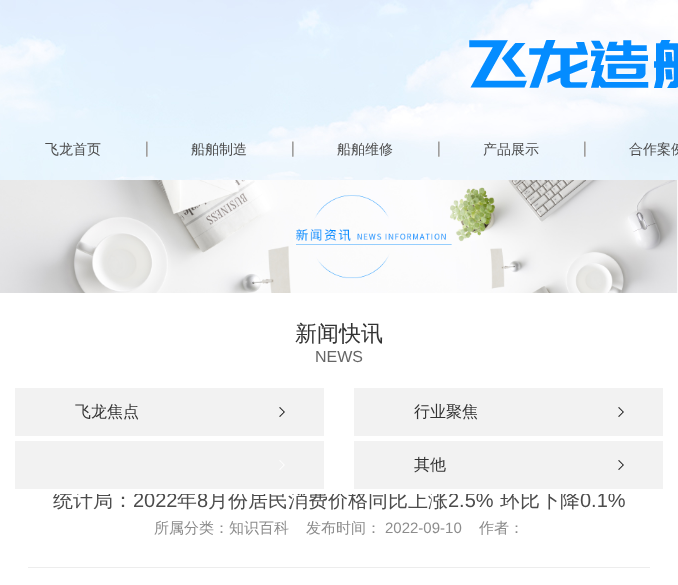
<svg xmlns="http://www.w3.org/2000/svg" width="678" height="585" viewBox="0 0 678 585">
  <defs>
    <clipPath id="clip1"><rect x="15" y="494" width="648" height="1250"/></clipPath>
  </defs>
  <rect width="100%" height="100%" fill="rgb(255,255,255)"/>
  <image x="0" y="0" width="678" height="180" href="pic1.png"/>
  <image x="469" y="40" width="209" height="48" href="pic2.png"/>
  <text x="45" y="154" font-family="WenQuanYi Zen Hei" font-size="14" font-weight="500" fill="rgb(76,76,76)">飞龙首页</text>
  <image x="146" y="141" width="2" height="16" href="pic3.png"/>
  <text x="191" y="154" font-family="WenQuanYi Zen Hei" font-size="14" font-weight="500" fill="rgb(76,76,76)">船舶制造</text>
  <image x="292" y="141" width="2" height="16" href="pic3.png"/>
  <text x="337" y="154" font-family="WenQuanYi Zen Hei" font-size="14" font-weight="500" fill="rgb(76,76,76)">船舶维修</text>
  <image x="438" y="141" width="2" height="16" href="pic3.png"/>
  <text x="483" y="154" font-family="WenQuanYi Zen Hei" font-size="14" font-weight="500" fill="rgb(76,76,76)">产品展示</text>
  <image x="584" y="141" width="2" height="16" href="pic3.png"/>
  <text x="629" y="154" font-family="WenQuanYi Zen Hei" font-size="14" font-weight="500" fill="rgb(76,76,76)">合作案例</text>
  <image x="0" y="180" width="678" height="113" href="pic4.png"/>
  <text x="295" y="341" font-family="WenQuanYi Zen Hei" font-size="22" font-weight="500" fill="rgb(51,51,51)">新闻快讯</text>
  <text x="315" y="362" font-family="Liberation Sans" font-size="16" fill="rgb(102,102,102)">NEWS</text>
  <rect x="15" y="388" width="309" height="48" fill="rgb(242,242,242)"/>
  <image x="279" y="407" width="6" height="10" href="pic5.png"/>
  <text x="75" y="417" font-family="WenQuanYi Zen Hei" font-size="16" font-weight="500" fill="rgb(51,51,51)">飞龙焦点</text>
  <rect x="354" y="388" width="309" height="48" fill="rgb(242,242,242)"/>
  <image x="618" y="407" width="6" height="10" href="pic5.png"/>
  <text x="414" y="417" font-family="WenQuanYi Zen Hei" font-size="16" font-weight="500" fill="rgb(51,51,51)">行业聚焦</text>
  <rect x="15" y="441" width="309" height="48" fill="rgb(242,242,242)"/>
  <image x="279" y="460" width="6" height="10" href="pic6.png"/>
  <rect x="354" y="441" width="309" height="48" fill="rgb(242,242,242)"/>
  <image x="618" y="460" width="6" height="10" href="pic5.png"/>
  <text x="414" y="470" font-family="WenQuanYi Zen Hei" font-size="16" font-weight="500" fill="rgb(51,51,51)">其他</text>
  <g clip-path="url(#clip1)">
    <text x="53" y="507" font-family="WenQuanYi Zen Hei" font-size="20" font-weight="500" fill="rgb(76,76,76)">统计局：</text>
    <text x="133" y="507" font-family="Liberation Sans" font-size="20" fill="rgb(76,76,76)">2022</text>
    <text x="177" y="507" font-family="WenQuanYi Zen Hei" font-size="20" font-weight="500" fill="rgb(76,76,76)">年</text>
    <text x="197" y="507" font-family="Liberation Sans" font-size="20" fill="rgb(76,76,76)">8</text>
    <text x="208" y="507" font-family="WenQuanYi Zen Hei" font-size="20" font-weight="500" fill="rgb(76,76,76)">月份居民消费价格同比上涨</text>
    <text x="448" y="507" font-family="Liberation Sans" font-size="20" fill="rgb(76,76,76)">2.5%</text>
    <text x="500" y="507" font-family="WenQuanYi Zen Hei" font-size="20" font-weight="500" fill="rgb(76,76,76)">环比下降</text>
    <text x="580" y="507" font-family="Liberation Sans" font-size="20" fill="rgb(76,76,76)">0.1%</text>
  </g>
  <g font-family="WenQuanYi Zen Hei" font-size="15" font-weight="500" fill="rgb(140,140,140)">
    <text x="154" y="533">所属分类：知识百科</text>
    <text x="306" y="533">发布时间：</text>
  </g>
  <text x="385" y="533" font-family="Liberation Sans" font-size="15" fill="rgb(140,140,140)">2022-09-10</text>
  <text x="479" y="533" font-family="WenQuanYi Zen Hei" font-size="15" font-weight="500" fill="rgb(140,140,140)">作者：</text>
  <rect x="28" y="567" width="622" height="1" fill="rgb(237,237,237)"/>
</svg>
